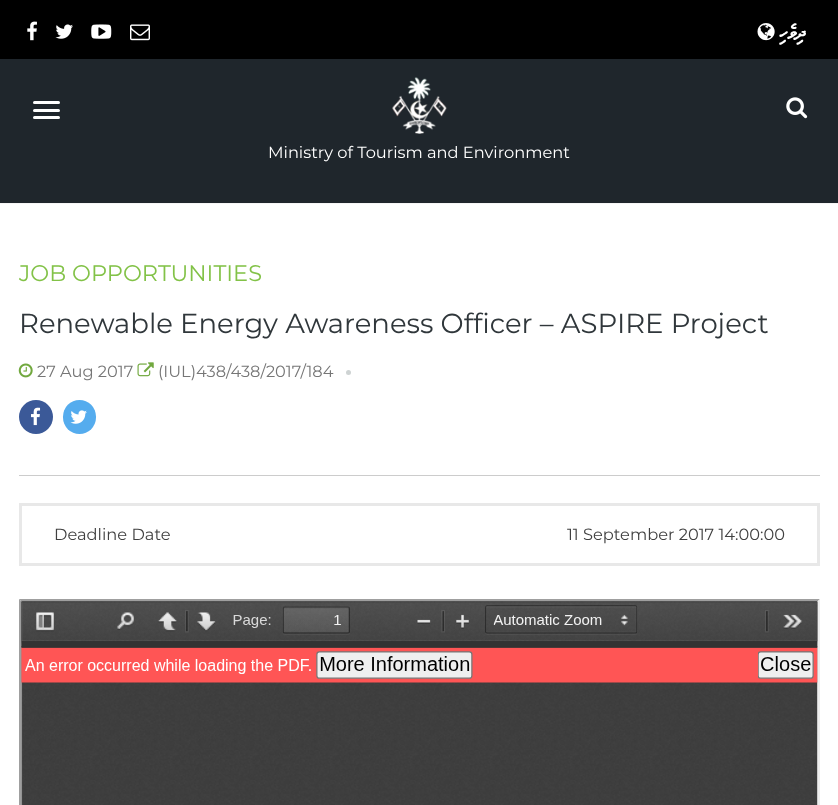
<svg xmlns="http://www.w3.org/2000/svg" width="838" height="805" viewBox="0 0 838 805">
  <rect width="100%" height="100%" fill="rgb(245,245,245)"/>
  <rect x="0" y="0" width="838" height="59" fill="rgb(0,0,0)"/>
  <image x="27" y="21" width="10" height="20" href="pic1.png"/>
  <image x="55" y="24" width="18" height="15" href="pic2.png"/>
  <image x="91" y="24" width="21" height="15" href="pic3.png"/>
  <image x="130" y="24" width="20" height="17" href="pic4.png"/>
  <image x="757" y="23" width="18" height="18" href="pic5.png"/>
  <text x="806" y="37" font-family="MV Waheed" font-size="20" direction="rtl" fill="rgb(255,255,255)">ދިވެހި</text>
  <rect x="0" y="59" width="838" height="144" fill="rgb(31,38,44)"/>
  <rect x="33" y="101" width="27" height="3" rx="1.5" fill="rgb(255,255,255)"/>
  <rect x="33" y="109" width="27" height="3" rx="1.5" fill="rgb(255,255,255)"/>
  <rect x="33" y="116" width="27" height="3" rx="1.5" fill="rgb(255,255,255)"/>
  <image x="786" y="97" width="22" height="22" href="pic6.png"/>
  <image x="392" y="77" width="55" height="57" href="pic7.png"/>
  <text x="268" y="158" font-family="Montserrat" font-size="16.25" fill="rgb(255,255,255)">Ministry of Tourism and Environment</text>
  <rect x="0" y="204" width="838" height="601" fill="rgb(255,255,255)"/>
  <text x="19" y="281" font-family="Montserrat" font-size="22.5" fill="rgb(130,194,71)">JOB OPPORTUNITIES</text>
  <text x="19" y="333" font-family="Montserrat" font-size="27.5" fill="rgb(48,55,59)">Renewable Energy Awareness Officer – ASPIRE Project</text>
  <image x="18" y="363" width="15" height="15" href="pic8.png"/>
  <text x="37" y="377" font-family="Montserrat" font-size="16.25" fill="rgb(118,118,118)">27 Aug 2017</text>
  <image x="137" y="362" width="17" height="15" href="pic9.png"/>
  <text x="158" y="377" font-family="Montserrat" font-size="16.25" fill="rgb(118,118,118)">(IUL)438/438/2017/184</text>
  <circle cx="348.5" cy="372.5" r="2.5" fill="rgb(206,211,211)"/>
  <circle cx="36" cy="417" r="17" fill="rgb(59,89,152)"/>
  <image x="31" y="407" width="10" height="19" href="pic10.png"/>
  <rect x="63" y="400" width="33" height="34" rx="16.5" fill="rgb(85,172,238)"/>
  <image x="70" y="410" width="17" height="14" href="pic11.png"/>
  <rect x="19" y="475" width="801" height="1" fill="rgb(204,204,204)"/>
  <rect x="20.5" y="504.5" width="798" height="60" fill="none" stroke="rgb(232,232,232)" stroke-width="3"/>
  <g font-family="Montserrat" font-size="16.25" fill="rgb(64,64,64)">
    <text x="54" y="540">Deadline Date</text>
    <text x="567" y="540">11 September 2017 14:00:00</text>
  </g>
  <path d="M19 599H820L818 601H21Z" fill="rgb(159,159,159)"/>
  <path d="M19 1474V599L21 601V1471Z" fill="rgb(159,159,159)"/>
  <image x="21" y="601" width="797" height="204" href="pic12.png"/>
  <path d="M820 599V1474L818 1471V601Z" fill="rgb(238,238,238)"/>
</svg>
